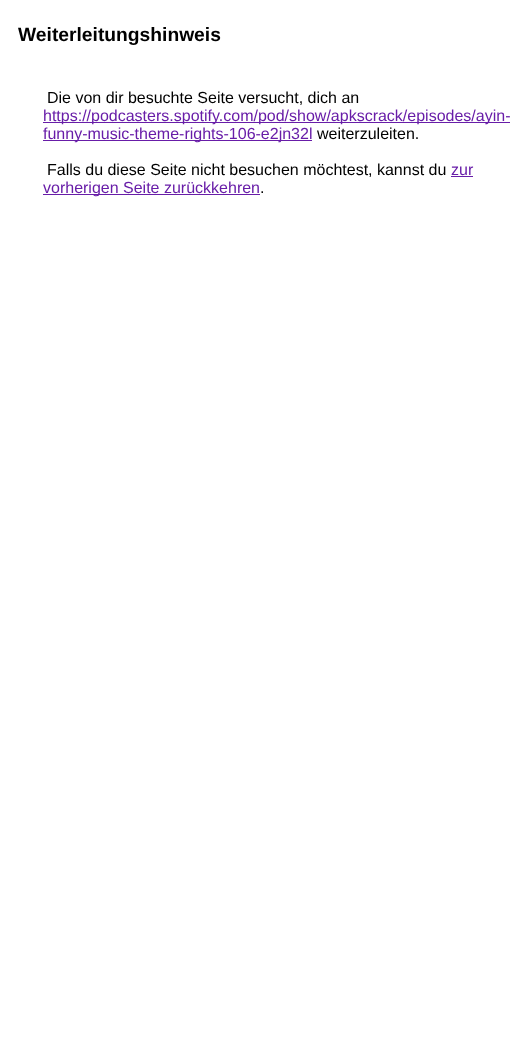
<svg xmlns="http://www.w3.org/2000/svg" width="513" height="1052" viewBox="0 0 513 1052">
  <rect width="100%" height="100%" fill="rgb(255,255,255)"/>
  <text x="18" y="41" font-family="Liberation Sans" font-size="19.25" font-weight="bold" fill="rgb(0,0,0)">Weiterleitungshinweis</text>
  <text x="47" y="103" font-family="Liberation Sans" font-size="16" fill="rgb(0,0,0)">Die von dir besuchte Seite versucht, dich an</text>
  <rect x="43" y="122" width="467" height="1" fill="rgb(104,29,168)"/>
  <text x="43" y="121" font-family="Liberation Sans" font-size="16" fill="rgb(104,29,168)">https://podcasters.spotify.com/pod/show/apkscrack/episodes/ayin-</text>
  <rect x="43" y="140" width="269" height="1" fill="rgb(104,29,168)"/>
  <text x="43" y="139" font-family="Liberation Sans" font-size="16" fill="rgb(104,29,168)">funny-music-theme-rights-106-e2jn32l</text>
  <g font-family="Liberation Sans" font-size="16" fill="rgb(0,0,0)">
    <text x="317" y="139">weiterzuleiten.</text>
    <text x="47" y="175">Falls du diese Seite nicht besuchen möchtest, kannst du</text>
  </g>
  <text x="451" y="175" font-family="Liberation Sans" font-size="16" fill="rgb(104,29,168)">zur</text>
  <rect x="451" y="176" width="22" height="1" fill="rgb(104,29,168)"/>
  <rect x="43" y="194" width="217" height="1" fill="rgb(104,29,168)"/>
  <text x="43" y="193" font-family="Liberation Sans" font-size="16" fill="rgb(104,29,168)">vorherigen Seite zurückkehren</text>
  <text x="260" y="193" font-family="Liberation Sans" font-size="16" fill="rgb(0,0,0)">.</text>
</svg>
